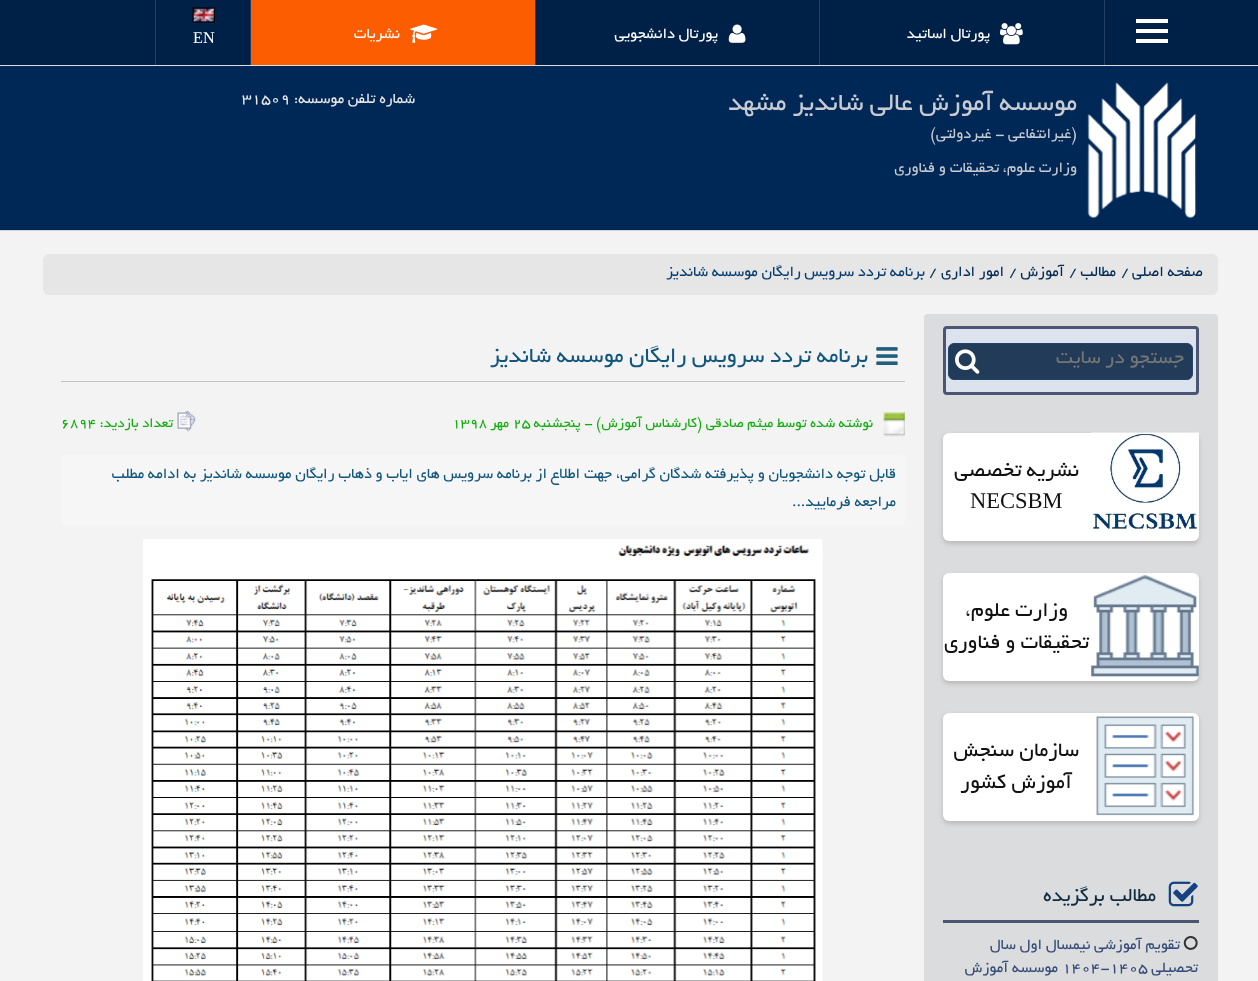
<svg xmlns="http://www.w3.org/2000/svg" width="1258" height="981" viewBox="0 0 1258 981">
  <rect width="100%" height="100%" fill="rgb(243,243,243)"/>
  <rect x="0" y="66" width="1258" height="164" fill="rgb(0,40,86)"/>
  <rect x="0" y="0" width="1258" height="65" fill="rgb(0,33,71)"/>
  <rect x="0" y="65" width="1258" height="1" fill="rgb(222,222,222)"/>
  <rect x="1104" y="0" width="1" height="65" fill="rgb(36,64,97)"/>
  <rect x="1136" y="19" width="32" height="4" fill="rgb(255,255,255)"/>
  <rect x="1136" y="29" width="32" height="4" fill="rgb(255,255,255)"/>
  <rect x="1136" y="39" width="32" height="4" fill="rgb(255,255,255)"/>
  <rect x="819" y="0" width="1" height="65" fill="rgb(36,64,97)"/>
  <image x="1000" y="23" width="23" height="22" href="pic1.png"/>
  <text x="990" y="38" font-family="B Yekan" font-size="16.25" direction="rtl" fill="rgb(255,255,255)">پورتال اساتید</text>
  <rect x="535" y="0" width="1" height="65" fill="rgb(36,64,97)"/>
  <image x="728" y="24" width="18" height="19" href="pic2.png"/>
  <text x="718" y="38" font-family="B Yekan" font-size="16.25" direction="rtl" fill="rgb(255,255,255)">پورتال دانشجویی</text>
  <rect x="251" y="0" width="284" height="65" fill="rgb(251,93,0)"/>
  <rect x="250" y="0" width="1" height="65" fill="rgb(36,64,97)"/>
  <image x="410" y="24" width="28" height="19" href="pic3.png"/>
  <text x="400" y="38" font-family="B Yekan" font-size="16.25" direction="rtl" fill="rgb(255,255,255)">نشریات</text>
  <rect x="155" y="0" width="1" height="65" fill="rgb(36,64,97)"/>
  <image x="192" y="7" width="23" height="16" href="pic4.png"/>
  <text x="193" y="43" font-family="Liberation Serif" font-size="16.25" fill="rgb(255,255,255)">EN</text>
  <image x="1087" y="82" width="110" height="136" href="pic5.png"/>
  <text x="1077" y="110" font-family="B Yekan" font-size="27.5" direction="rtl" fill="rgb(200,203,210)">موسسه آموزش عالي شانديز مشهد</text>
  <g font-family="B Yekan" font-size="16.25" direction="rtl" fill="rgb(200,203,210)">
    <text x="1077" y="138">(غیرانتفاعی - غیردولتی)</text>
    <text x="1077" y="172">وزارت علوم، تحقیقات و فناوری</text>
  </g>
  <text x="415" y="103" font-family="B Yekan" font-size="16.25" direction="rtl" fill="rgb(233,233,233)">شماره تلفن موسسه:</text>
  <text x="242" y="103" font-family="B Yekan" font-size="16.25" fill="rgb(233,233,233)">31509</text>
  <rect x="0" y="230" width="1258" height="1" fill="rgb(211,211,211)"/>
  <rect x="43" y="254" width="1175" height="41" rx="6" fill="rgb(230,230,230)"/>
  <text x="1203" y="276" font-family="B Yekan" font-size="16.25" direction="rtl" fill="rgb(2,42,84)">صفحه اصلی</text>
  <text x="1121" y="276" font-family="B Yekan" font-size="16.25" fill="rgb(2,42,84)">/</text>
  <text x="1116" y="276" font-family="B Yekan" font-size="16.25" direction="rtl" fill="rgb(2,42,84)">مطالب</text>
  <text x="1069" y="276" font-family="B Yekan" font-size="16.25" fill="rgb(2,42,84)">/</text>
  <text x="1064" y="276" font-family="B Yekan" font-size="16.25" direction="rtl" fill="rgb(2,42,84)">آموزش</text>
  <text x="1009" y="276" font-family="B Yekan" font-size="16.25" fill="rgb(2,42,84)">/</text>
  <text x="1004" y="276" font-family="B Yekan" font-size="16.25" direction="rtl" fill="rgb(2,42,84)">امور اداري</text>
  <text x="929" y="276" font-family="B Yekan" font-size="16.25" fill="rgb(2,42,84)">/</text>
  <text x="925" y="276" font-family="B Yekan" font-size="16.25" direction="rtl" fill="rgb(9,61,111)">برنامه تردد سرويس رايگان موسسه شانديز</text>
  <rect x="924" y="314" width="294" height="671" rx="4" fill="rgb(219,220,221)"/>
  <rect x="944.5" y="327.5" width="253" height="66" rx="2.5" fill="rgb(221,227,237)" stroke="rgb(74,86,116)" stroke-width="3"/>
  <rect x="948.5" y="343.5" width="244" height="36" rx="5.5" fill="rgb(33,59,89)" stroke="rgb(33,68,108)"/>
  <text x="1184" y="363" font-family="B Yekan" font-size="21.25" direction="rtl" fill="rgb(117,117,117)">جستجو در سایت</text>
  <image x="955" y="349" width="25" height="25" href="pic6.png"/>
  <rect x="943" y="435" width="256" height="109" rx="6" fill="rgb(189,186,186)" filter="blur(2px)"/>
  <rect x="943" y="433" width="256" height="108" rx="6" fill="rgb(255,255,255)"/>
  <image x="1091" y="432" width="108" height="97" href="pic7.png"/>
  <text x="1079" y="476" font-family="B Yekan" font-size="22.5" direction="rtl" fill="rgb(17,17,17)">نشريه تخصصي</text>
  <text x="970" y="508" font-family="Liberation Serif" font-size="22.5" fill="rgb(17,17,17)">NECSBM</text>
  <rect x="943" y="575" width="256" height="109" rx="6" fill="rgb(189,186,186)" filter="blur(2px)"/>
  <rect x="943" y="573" width="256" height="108" rx="6" fill="rgb(255,255,255)"/>
  <image x="1091" y="575" width="108" height="102" href="pic8.png"/>
  <g font-family="B Yekan" font-size="22.5" direction="rtl" fill="rgb(17,17,17)">
    <text x="1068" y="616">وزارت علوم،</text>
    <text x="1089" y="648">تحقيقات و فناوري</text>
  </g>
  <rect x="943" y="715" width="256" height="109" rx="6" fill="rgb(189,186,186)" filter="blur(2px)"/>
  <rect x="943" y="713" width="256" height="108" rx="6" fill="rgb(255,255,255)"/>
  <image x="1096" y="716" width="98" height="100" href="pic9.png"/>
  <g font-family="B Yekan" font-size="22.5" direction="rtl" fill="rgb(17,17,17)">
    <text x="1079" y="756">سازمان سنجش</text>
    <text x="1072" y="788">آموزش كشور</text>
  </g>
  <rect x="943" y="920" width="256" height="3" fill="rgb(74,86,116)"/>
  <image x="1168" y="881" width="30" height="26" href="pic10.png"/>
  <text x="1156" y="901" font-family="B Yekan" font-size="21.25" direction="rtl" fill="rgb(17,43,63)">مطالب برگزیده</text>
  <image x="1183" y="936" width="15" height="14" href="pic11.png"/>
  <g font-family="B Yekan" font-size="16.25" direction="rtl" fill="rgb(54,75,119)">
    <text x="1180" y="949">تقويم آموزشي نيمسال اول سال</text>
    <text x="1198" y="972">تحصيلي</text>
  </g>
  <text x="1062" y="972" font-family="B Yekan" font-size="16.25" fill="rgb(54,75,119)">۱۴۰۴-۱۴۰۵</text>
  <text x="1058" y="972" font-family="B Yekan" font-size="16.25" direction="rtl" fill="rgb(54,75,119)">موسسه آموزش</text>
  <rect x="61" y="381" width="844" height="1" fill="rgb(196,196,196)"/>
  <image x="876" y="347" width="22" height="18" href="pic12.png"/>
  <text x="868" y="362" font-family="B Yekan" font-size="23.75" direction="rtl" fill="rgb(16,86,125)">برنامه تردد سرويس رايگان موسسه شانديز</text>
  <image x="883" y="412" width="22" height="25" href="pic13.png"/>
  <text x="873" y="427" font-family="B Yekan" font-size="15" direction="rtl" fill="rgb(20,173,16)">نوشته شده توسط ميثم صادقي (كارشناس آموزش) - پنجشنبه</text>
  <text x="513" y="427" font-family="B Yekan" font-size="15" fill="rgb(20,173,16)">۲۵</text>
  <text x="509" y="427" font-family="B Yekan" font-size="15" direction="rtl" fill="rgb(20,173,16)">مهر</text>
  <text x="452" y="427" font-family="B Yekan" font-size="15" fill="rgb(20,173,16)">۱۳۹۸</text>
  <image x="177" y="411" width="19" height="21" href="pic14.png"/>
  <text x="173" y="427" font-family="B Yekan" font-size="15" direction="rtl" fill="rgb(20,173,16)">تعداد بازدید:</text>
  <text x="61" y="427" font-family="B Yekan" font-size="15" fill="rgb(20,173,16)">۶۸۹۴</text>
  <rect x="61" y="455" width="844" height="71" rx="5" fill="rgb(246,246,246)"/>
  <g font-family="B Yekan" font-size="16.25" direction="rtl" fill="rgb(16,86,125)">
    <text x="896" y="478">قابل توجه دانشجويان و پذيرفته شدگان گرامي،</text>
    <text x="612" y="478">جهت اطلاع از برنامه سرويس هاي اياب و ذهاب رايگان موسسه شانديز به ادامه مطلب</text>
    <text x="896" y="506">مراجعه فرماييد...</text>
  </g>
  <image x="143" y="539" width="680" height="442" href="pic15.png"/>
</svg>
